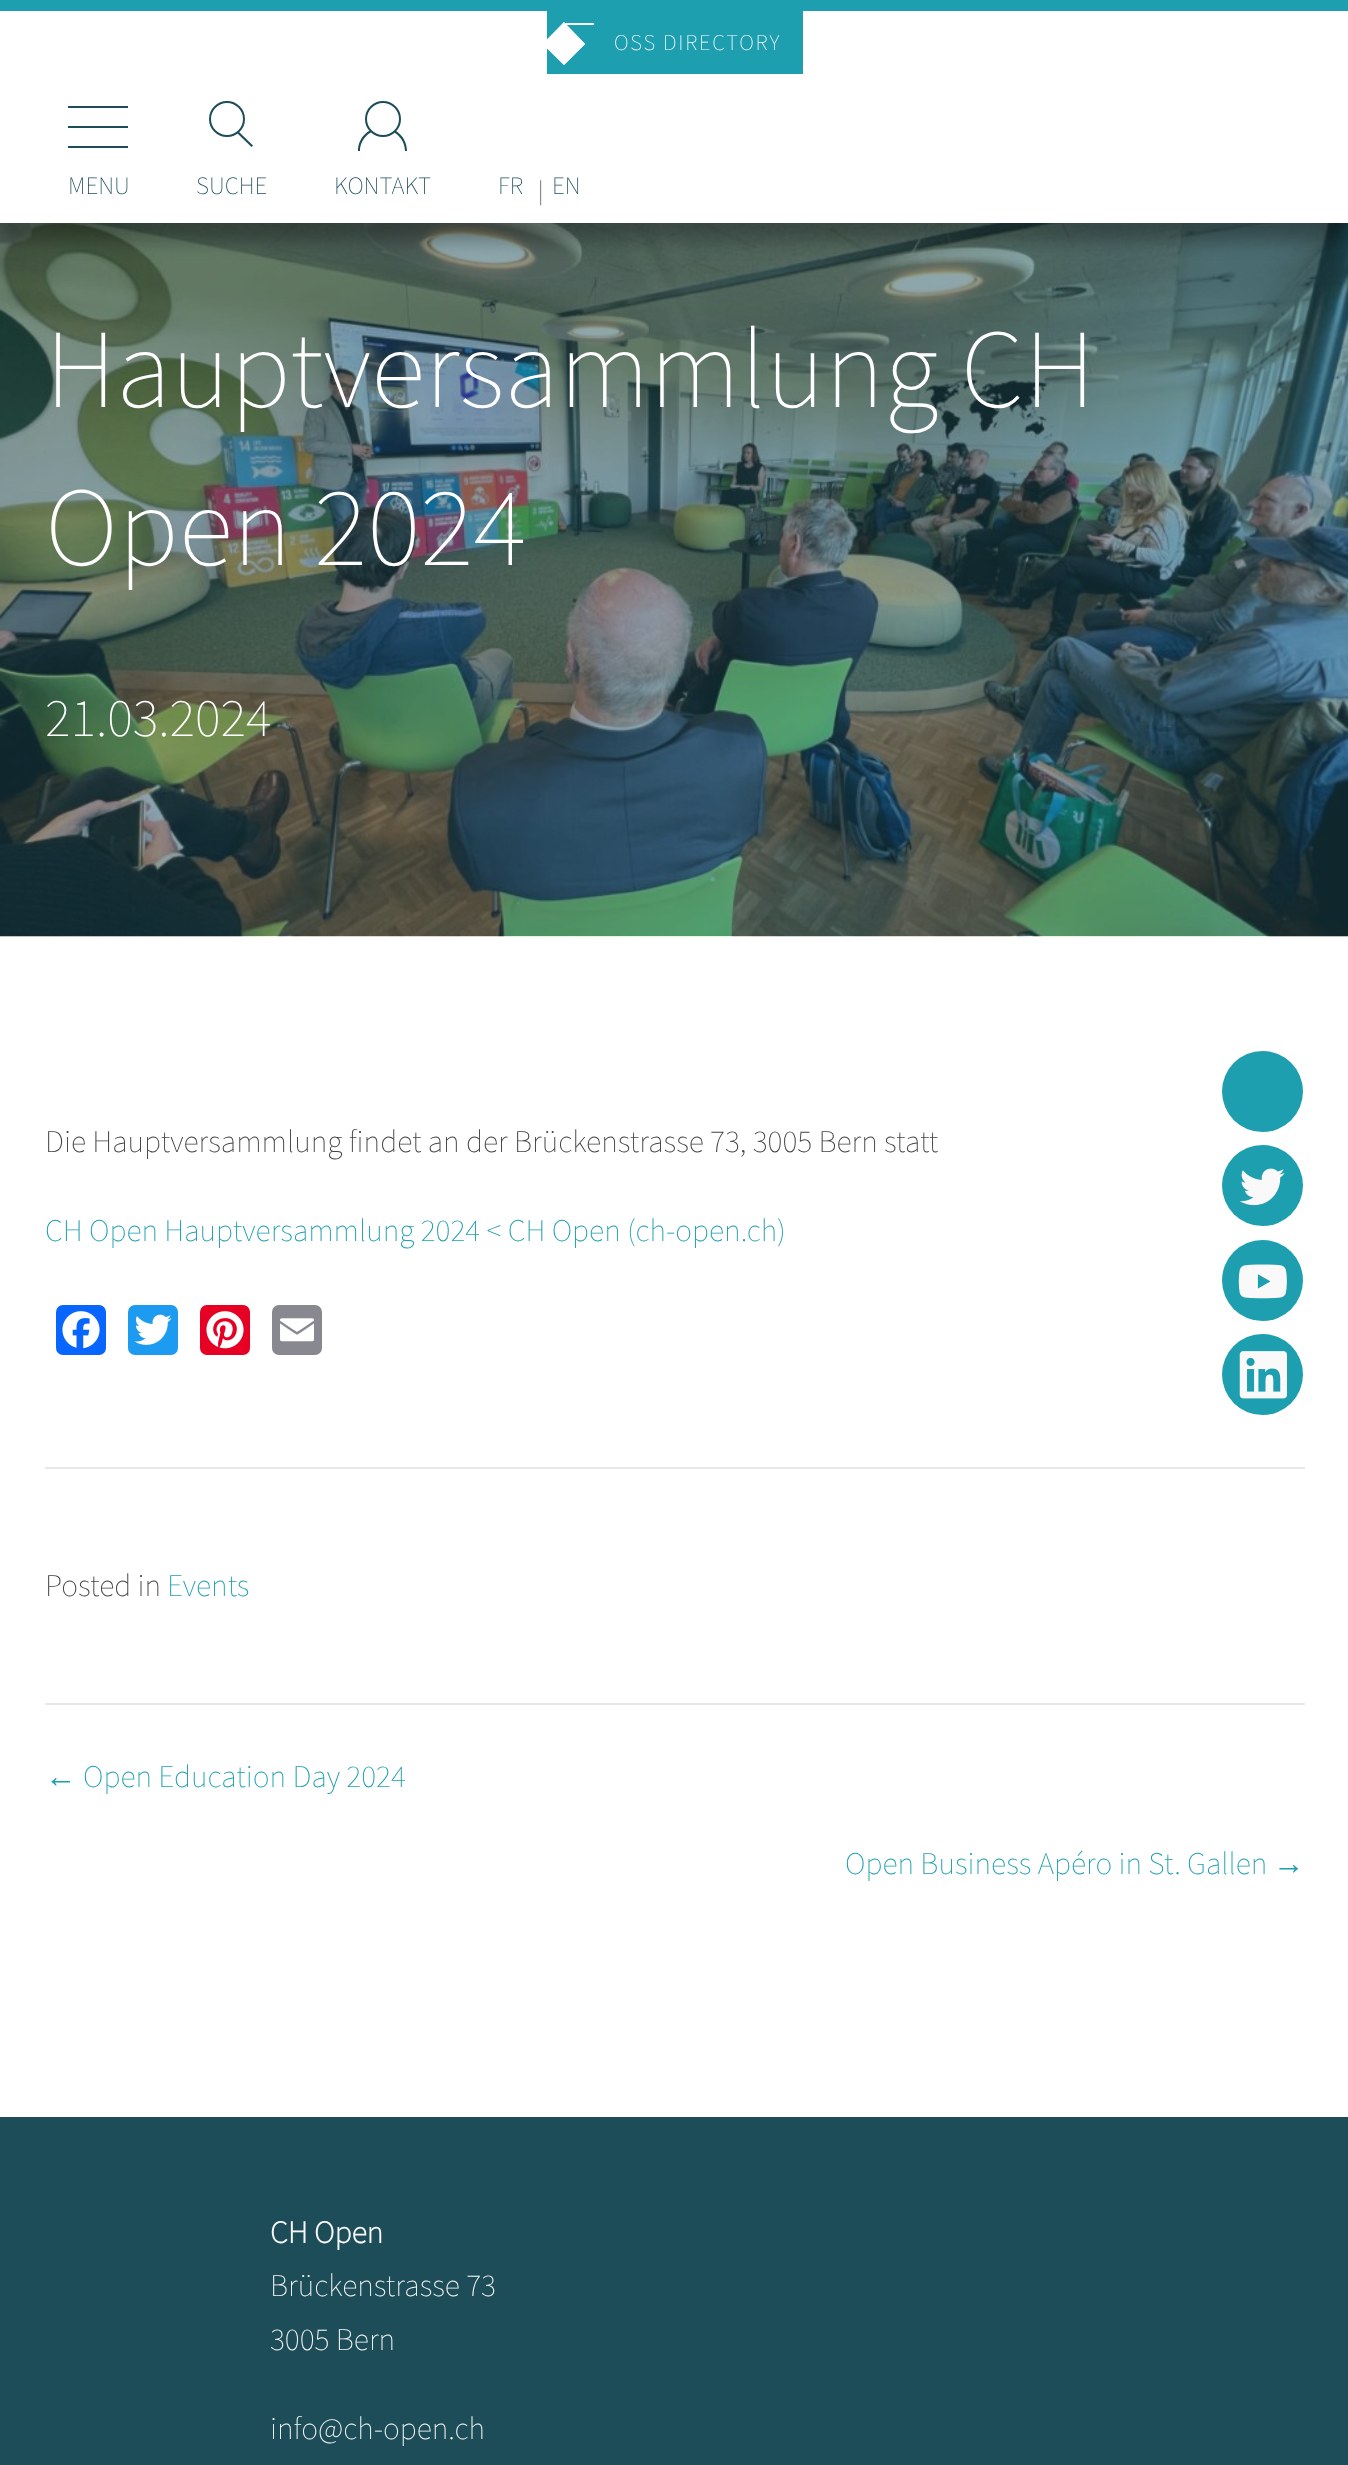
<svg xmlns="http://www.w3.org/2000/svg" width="1348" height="2465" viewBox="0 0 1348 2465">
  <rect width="100%" height="100%" fill="rgb(255,255,255)"/>
  <image x="0" y="223" width="1348" height="714" href="pic1.png"/>
  <rect x="0" y="18" width="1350" height="223" fill="rgba(0,0,0,0.3)" filter="blur(9px)"/>
  <rect x="0" y="11" width="1348" height="212" fill="rgb(255,255,255)"/>
  <rect x="547" y="11" width="256" height="63" fill="rgb(30,159,176)"/>
  <rect x="565" y="23" width="29" height="2" fill="rgb(255,255,255)"/>
  <rect x="565" y="23" width="2" height="3" fill="rgb(255,255,255)"/>
  <path d="M564 22L585 44L564 65L543 44Z" fill="rgb(255,255,255)"/>
  <path d="M564 24L583.5 44L564 63.5L544 44Z" fill="none" stroke="rgb(255,255,255)" stroke-width="2.3"/>
  <text x="614" y="50" font-family="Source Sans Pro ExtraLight" font-size="22.5" font-weight="200" letter-spacing="1.75" fill="rgb(255,255,255)">OSS DIRECTORY</text>
  <rect x="0" y="0" width="1348" height="11" fill="rgb(30,159,176)"/>
  <rect x="68" y="106" width="60" height="2" fill="rgb(29,77,89)"/>
  <rect x="68" y="126" width="60" height="2" fill="rgb(29,77,89)"/>
  <rect x="68" y="146" width="60" height="2" fill="rgb(29,77,89)"/>
  <text x="68" y="194" font-family="Source Sans Pro ExtraLight" font-size="25" font-weight="200" fill="rgb(29,77,89)">MENU</text>
  <circle cx="227" cy="119" r="17" fill="none" stroke="rgb(29,77,89)" stroke-width="2"/>
  <path d="M238.5 131.5L253 145.5L251.5 147L237 133Z" fill="rgb(29,77,89)"/>
  <text x="196" y="194" font-family="Source Sans Pro ExtraLight" font-size="25" font-weight="200" fill="rgb(29,77,89)">SUCHE</text>
  <path d="M380 128H385C397 128 407 138 407 151H358C358 138 368 128 380 128ZM380 130H385C396 130 405 140 405 151H360C360 140 369 130 380 130Z" fill="rgb(29,77,89)" fill-rule="evenodd"/>
  <circle cx="383" cy="119" r="17" fill="rgb(255,255,255)" stroke="rgb(29,77,89)" stroke-width="2"/>
  <g font-family="Source Sans Pro ExtraLight" font-size="25" font-weight="200" fill="rgb(29,77,89)">
    <text x="334" y="194">KONTAKT</text>
    <text x="498" y="194">FR</text>
  </g>
  <text x="538" y="199" font-family="Source Sans Pro ExtraLight" font-size="25" font-weight="200" fill="rgb(55,60,68)">|</text>
  <text x="552" y="194" font-family="Source Sans Pro ExtraLight" font-size="25" font-weight="200" fill="rgb(29,77,89)">EN</text>
  <g font-family="Source Sans Pro ExtraLight" font-size="112.5" font-weight="200" fill="rgb(255,255,255)">
    <text>
      <tspan x="45" y="407">Hauptversammlung CH</tspan>
      <tspan x="45" y="565">Open 2024</tspan>
    </text>
  </g>
  <text x="45" y="736" font-family="Source Sans Pro ExtraLight" font-size="54" font-weight="200" fill="rgb(255,255,255)">21.03.2024</text>
  <text x="45" y="1152" font-family="Source Sans Pro ExtraLight" font-size="31.5" font-weight="200" fill="rgb(66,66,66)">Die Hauptversammlung findet an der Brückenstrasse 73, 3005 Bern statt</text>
  <text x="45" y="1241" font-family="Source Sans Pro ExtraLight" font-size="31.5" font-weight="200" fill="rgb(30,159,176)">CH Open Hauptversammlung 2024 &lt; CH Open (ch-open.ch)</text>
  <rect x="56" y="1305" width="50" height="50" rx="7" fill="rgb(8,102,255)"/>
  <image x="62" y="1311" width="38" height="38" href="pic2.png"/>
  <rect x="128" y="1305" width="50" height="50" rx="7" fill="rgb(29,155,240)"/>
  <image x="134" y="1314" width="38" height="31" href="pic3.png"/>
  <rect x="200" y="1305" width="50" height="50" rx="7" fill="rgb(230,0,35)"/>
  <image x="206" y="1311" width="38" height="38" href="pic4.png"/>
  <rect x="272" y="1305" width="50" height="50" rx="7" fill="rgb(136,137,144)"/>
  <image x="280" y="1318" width="34" height="24" href="pic5.png"/>
  <rect x="45" y="1467" width="1260" height="2" fill="rgb(232,232,232)"/>
  <text x="45" y="1596" font-family="Source Sans Pro ExtraLight" font-size="31.5" font-weight="200" fill="rgb(66,66,66)">Posted in</text>
  <text x="167" y="1596" font-family="Source Sans Pro ExtraLight" font-size="31.5" font-weight="200" fill="rgb(30,159,176)">Events</text>
  <rect x="45" y="1703" width="1260" height="2" fill="rgb(232,232,232)"/>
  <text x="45" y="1787" font-family="Liberation Sans" font-size="31.5" fill="rgb(30,159,176)">←</text>
  <g font-family="Source Sans Pro ExtraLight" font-size="31.5" font-weight="200" fill="rgb(30,159,176)">
    <text x="83" y="1787">Open Education Day 2024</text>
    <text x="845" y="1874">Open Business Apéro in St. Gallen</text>
  </g>
  <text x="1273" y="1874" font-family="Liberation Sans" font-size="31.5" fill="rgb(30,159,176)">→</text>
  <rect x="0" y="2117" width="1348" height="348" fill="rgb(29,77,89)"/>
  <text x="270" y="2243" font-family="Source Sans Pro ExtraLight" font-size="31.5" font-weight="bold" fill="rgb(248,248,248)">CH Open</text>
  <g font-family="Source Sans Pro ExtraLight" font-size="31.5" font-weight="200" fill="rgb(248,248,248)">
    <text>
      <tspan x="270" y="2296">Brückenstrasse 73</tspan>
      <tspan x="270" y="2350">3005 Bern</tspan>
    </text>
    <text x="270" y="2439">info@ch-open.ch</text>
  </g>
  <circle cx="1262.5" cy="1091.5" r="40.5" fill="rgb(30,159,176)"/>
  <circle cx="1262.5" cy="1185.5" r="40.5" fill="rgb(30,159,176)"/>
  <image x="1239" y="1168" width="46" height="38" href="pic6.png"/>
  <circle cx="1262.5" cy="1280.5" r="40.5" fill="rgb(30,159,176)"/>
  <image x="1238" y="1264" width="49" height="35" href="pic7.png"/>
  <circle cx="1262.5" cy="1374.5" r="40.5" fill="rgb(30,159,176)"/>
  <image x="1239" y="1351" width="48" height="48" href="pic8.png"/>
</svg>
